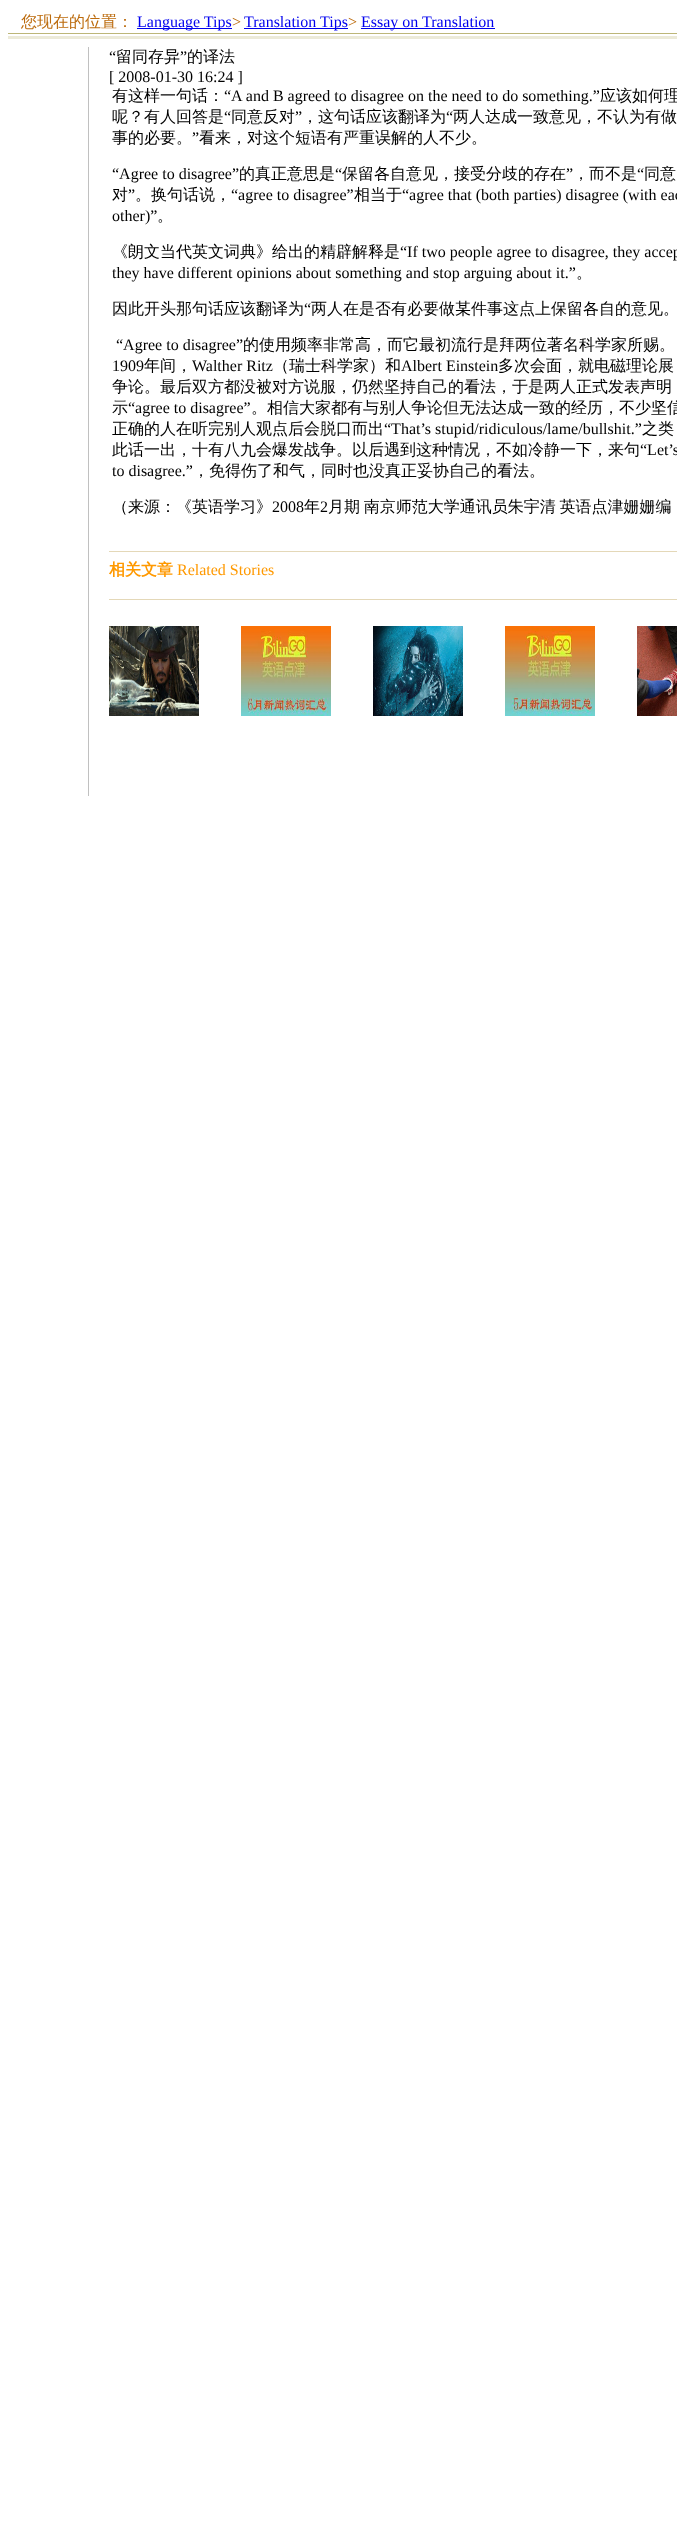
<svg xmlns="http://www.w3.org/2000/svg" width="677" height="2527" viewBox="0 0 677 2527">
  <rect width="100%" height="100%" fill="rgb(255,255,255)"/>
  <text x="21" y="27" font-family="WenQuanYi Zen Hei" font-size="16" font-weight="500" fill="rgb(188,107,13)">您现在的位置：</text>
  <rect x="137" y="28" width="95" height="1" fill="rgb(0,0,238)"/>
  <text x="137" y="27" font-family="Liberation Serif" font-size="16" fill="rgb(0,0,238)">Language Tips</text>
  <text x="232" y="27" font-family="Liberation Serif" font-size="16" fill="rgb(188,107,13)">&gt;</text>
  <rect x="244" y="28" width="104" height="1" fill="rgb(0,0,238)"/>
  <text x="244" y="27" font-family="Liberation Serif" font-size="16" fill="rgb(0,0,238)">Translation Tips</text>
  <text x="348" y="27" font-family="Liberation Serif" font-size="16" fill="rgb(188,107,13)">&gt;</text>
  <rect x="361" y="28" width="134" height="1" fill="rgb(0,0,238)"/>
  <text x="361" y="27" font-family="Liberation Serif" font-size="16" fill="rgb(0,0,238)">Essay on Translation</text>
  <rect x="8" y="33" width="669" height="1" fill="rgb(188,182,120)"/>
  <rect x="8" y="36" width="669" height="3" fill="rgb(236,234,216)"/>
  <rect x="88" y="47" width="1" height="749" fill="rgb(192,192,192)"/>
  <text x="109" y="62" font-family="Liberation Serif" font-size="16" fill="rgb(0,0,0)">“</text>
  <text x="116" y="62" font-family="WenQuanYi Zen Hei" font-size="16" font-weight="500" fill="rgb(0,0,0)">留同存异</text>
  <text x="180" y="62" font-family="Liberation Serif" font-size="16" fill="rgb(0,0,0)">”</text>
  <text x="187" y="62" font-family="WenQuanYi Zen Hei" font-size="16" font-weight="500" fill="rgb(0,0,0)">的译法</text>
  <text x="109" y="82" font-family="Liberation Serif" font-size="16" fill="rgb(0,0,0)">[ 2008-01-30 16:24 ]</text>
  <text x="112" y="101" font-family="WenQuanYi Zen Hei" font-size="16" font-weight="500" fill="rgb(0,0,0)">有这样一句话：</text>
  <text x="224" y="101" font-family="Liberation Serif" font-size="16" fill="rgb(0,0,0)">“A and B agreed to disagree on the need to do something.”</text>
  <g font-family="WenQuanYi Zen Hei" font-size="16" font-weight="500" fill="rgb(0,0,0)">
    <text x="600" y="101">应该如何理</text>
    <text x="112" y="122">呢？有人回答是</text>
  </g>
  <text x="224" y="122" font-family="Liberation Serif" font-size="16" fill="rgb(0,0,0)">“</text>
  <text x="231" y="122" font-family="WenQuanYi Zen Hei" font-size="16" font-weight="500" fill="rgb(0,0,0)">同意反对</text>
  <text x="295" y="122" font-family="Liberation Serif" font-size="16" fill="rgb(0,0,0)">”</text>
  <text x="302" y="122" font-family="WenQuanYi Zen Hei" font-size="16" font-weight="500" fill="rgb(0,0,0)">，这句话应该翻译为</text>
  <text x="446" y="122" font-family="Liberation Serif" font-size="16" fill="rgb(0,0,0)">“</text>
  <g font-family="WenQuanYi Zen Hei" font-size="16" font-weight="500" fill="rgb(0,0,0)">
    <text x="453" y="122">两人达成一致意见，不认为有做</text>
    <text x="112" y="143">事的必要。</text>
  </g>
  <text x="192" y="143" font-family="Liberation Serif" font-size="16" fill="rgb(0,0,0)">”</text>
  <text x="199" y="143" font-family="WenQuanYi Zen Hei" font-size="16" font-weight="500" fill="rgb(0,0,0)">看来，对这个短语有严重误解的人不少。</text>
  <text x="112" y="179" font-family="Liberation Serif" font-size="16" fill="rgb(0,0,0)">“Agree to disagree”</text>
  <text x="239" y="179" font-family="WenQuanYi Zen Hei" font-size="16" font-weight="500" fill="rgb(0,0,0)">的真正意思是</text>
  <text x="335" y="179" font-family="Liberation Serif" font-size="16" fill="rgb(0,0,0)">“</text>
  <text x="342" y="179" font-family="WenQuanYi Zen Hei" font-size="16" font-weight="500" fill="rgb(0,0,0)">保留各自意见，接受分歧的存在</text>
  <text x="566" y="179" font-family="Liberation Serif" font-size="16" fill="rgb(0,0,0)">”</text>
  <text x="573" y="179" font-family="WenQuanYi Zen Hei" font-size="16" font-weight="500" fill="rgb(0,0,0)">，而不是</text>
  <text x="637" y="179" font-family="Liberation Serif" font-size="16" fill="rgb(0,0,0)">“</text>
  <g font-family="WenQuanYi Zen Hei" font-size="16" font-weight="500" fill="rgb(0,0,0)">
    <text x="644" y="179">同意</text>
    <text x="112" y="200">对</text>
  </g>
  <text x="128" y="200" font-family="Liberation Serif" font-size="16" fill="rgb(0,0,0)">”</text>
  <text x="135" y="200" font-family="WenQuanYi Zen Hei" font-size="16" font-weight="500" fill="rgb(0,0,0)">。换句话说，</text>
  <text x="231" y="200" font-family="Liberation Serif" font-size="16" fill="rgb(0,0,0)">“agree to disagree”</text>
  <text x="354" y="200" font-family="WenQuanYi Zen Hei" font-size="16" font-weight="500" fill="rgb(0,0,0)">相当于</text>
  <g font-family="Liberation Serif" font-size="16" fill="rgb(0,0,0)">
    <text x="402" y="200">“agree that (both parties) disagree (with eac</text>
    <text x="112" y="221">other)”</text>
  </g>
  <g font-family="WenQuanYi Zen Hei" font-size="16" font-weight="500" fill="rgb(0,0,0)">
    <text x="157" y="221">。</text>
    <text x="112" y="257">《朗文当代英文词典》给出的精辟解释是</text>
  </g>
  <g font-family="Liberation Serif" font-size="16" fill="rgb(0,0,0)">
    <text x="400" y="257">“If two people agree to disagree, they accep</text>
    <text x="112" y="278">they have different opinions about something and stop arguing about it.”</text>
  </g>
  <g font-family="WenQuanYi Zen Hei" font-size="16" font-weight="500" fill="rgb(0,0,0)">
    <text x="576" y="278">。</text>
    <text x="112" y="314">因此开头那句话应该翻译为</text>
  </g>
  <text x="304" y="314" font-family="Liberation Serif" font-size="16" fill="rgb(0,0,0)">“</text>
  <text x="311" y="314" font-family="WenQuanYi Zen Hei" font-size="16" font-weight="500" fill="rgb(0,0,0)">两人在是否有必要做某件事这点上保留各自的意见。</text>
  <text x="116" y="350" font-family="Liberation Serif" font-size="16" fill="rgb(0,0,0)">“Agree to disagree”</text>
  <text x="243" y="350" font-family="WenQuanYi Zen Hei" font-size="16" font-weight="500" fill="rgb(0,0,0)">的使用频率非常高，而它最初流行是拜两位著名科学家所赐。</text>
  <text x="112" y="371" font-family="Liberation Serif" font-size="16" fill="rgb(0,0,0)">1909</text>
  <text x="144" y="371" font-family="WenQuanYi Zen Hei" font-size="16" font-weight="500" fill="rgb(0,0,0)">年间，</text>
  <text x="192" y="371" font-family="Liberation Serif" font-size="16" fill="rgb(0,0,0)">Walther Ritz</text>
  <text x="273" y="371" font-family="WenQuanYi Zen Hei" font-size="16" font-weight="500" fill="rgb(0,0,0)">（瑞士科学家）和</text>
  <text x="401" y="371" font-family="Liberation Serif" font-size="16" fill="rgb(0,0,0)">Albert Einstein</text>
  <g font-family="WenQuanYi Zen Hei" font-size="16" font-weight="500" fill="rgb(0,0,0)">
    <text x="498" y="371">多次会面，就电磁理论展</text>
    <text>
      <tspan x="112" y="392">争论。最后双方都没被对方说服，仍然坚持自己的看法，于是两人正式发表声明</tspan>
      <tspan x="112" y="413">示</tspan>
    </text>
  </g>
  <text x="128" y="413" font-family="Liberation Serif" font-size="16" fill="rgb(0,0,0)">“agree to disagree”</text>
  <g font-family="WenQuanYi Zen Hei" font-size="16" font-weight="500" fill="rgb(0,0,0)">
    <text x="251" y="413">。相信大家都有与别人争论但无法达成一致的经历，不少坚信</text>
    <text x="112" y="434">正确的人在听完别人观点后会脱口而出</text>
  </g>
  <text x="384" y="434" font-family="Liberation Serif" font-size="16" fill="rgb(0,0,0)">“That’s stupid/ridiculous/lame/bullshit.”</text>
  <g font-family="WenQuanYi Zen Hei" font-size="16" font-weight="500" fill="rgb(0,0,0)">
    <text x="642" y="434">之类</text>
    <text x="112" y="455">此话一出，十有八九会爆发战争。以后遇到这种情况，不如冷静一下，来句</text>
  </g>
  <g font-family="Liberation Serif" font-size="16" fill="rgb(0,0,0)">
    <text x="640" y="455">“Let’s</text>
    <text x="112" y="476">to disagree.”</text>
  </g>
  <g font-family="WenQuanYi Zen Hei" font-size="16" font-weight="500" fill="rgb(0,0,0)">
    <text x="193" y="476">，免得伤了和气，同时也没真正妥协自己的看法。</text>
    <text x="112" y="512">（来源：《英语学习》</text>
  </g>
  <text x="272" y="512" font-family="Liberation Serif" font-size="16" fill="rgb(0,0,0)">2008</text>
  <text x="304" y="512" font-family="WenQuanYi Zen Hei" font-size="16" font-weight="500" fill="rgb(0,0,0)">年</text>
  <text x="320" y="512" font-family="Liberation Serif" font-size="16" fill="rgb(0,0,0)">2</text>
  <text x="328" y="512" word-spacing="-1" font-family="WenQuanYi Zen Hei" font-size="16" font-weight="500" fill="rgb(0,0,0)">月期 南京师范大学通讯员朱宇清 英语点津姗姗编</text>
  <rect x="109" y="551" width="568" height="1" fill="rgb(228,216,184)"/>
  <text x="109" y="575" font-family="WenQuanYi Zen Hei" font-size="16" font-weight="bold" fill="rgb(255,153,0)">相关文章</text>
  <text x="177" y="575" font-family="Liberation Serif" font-size="16" fill="rgb(255,153,0)">Related Stories</text>
  <rect x="109" y="599" width="568" height="1" fill="rgb(228,216,184)"/>
  <image x="109" y="626" width="568" height="90" href="pic1.png"/>
</svg>
